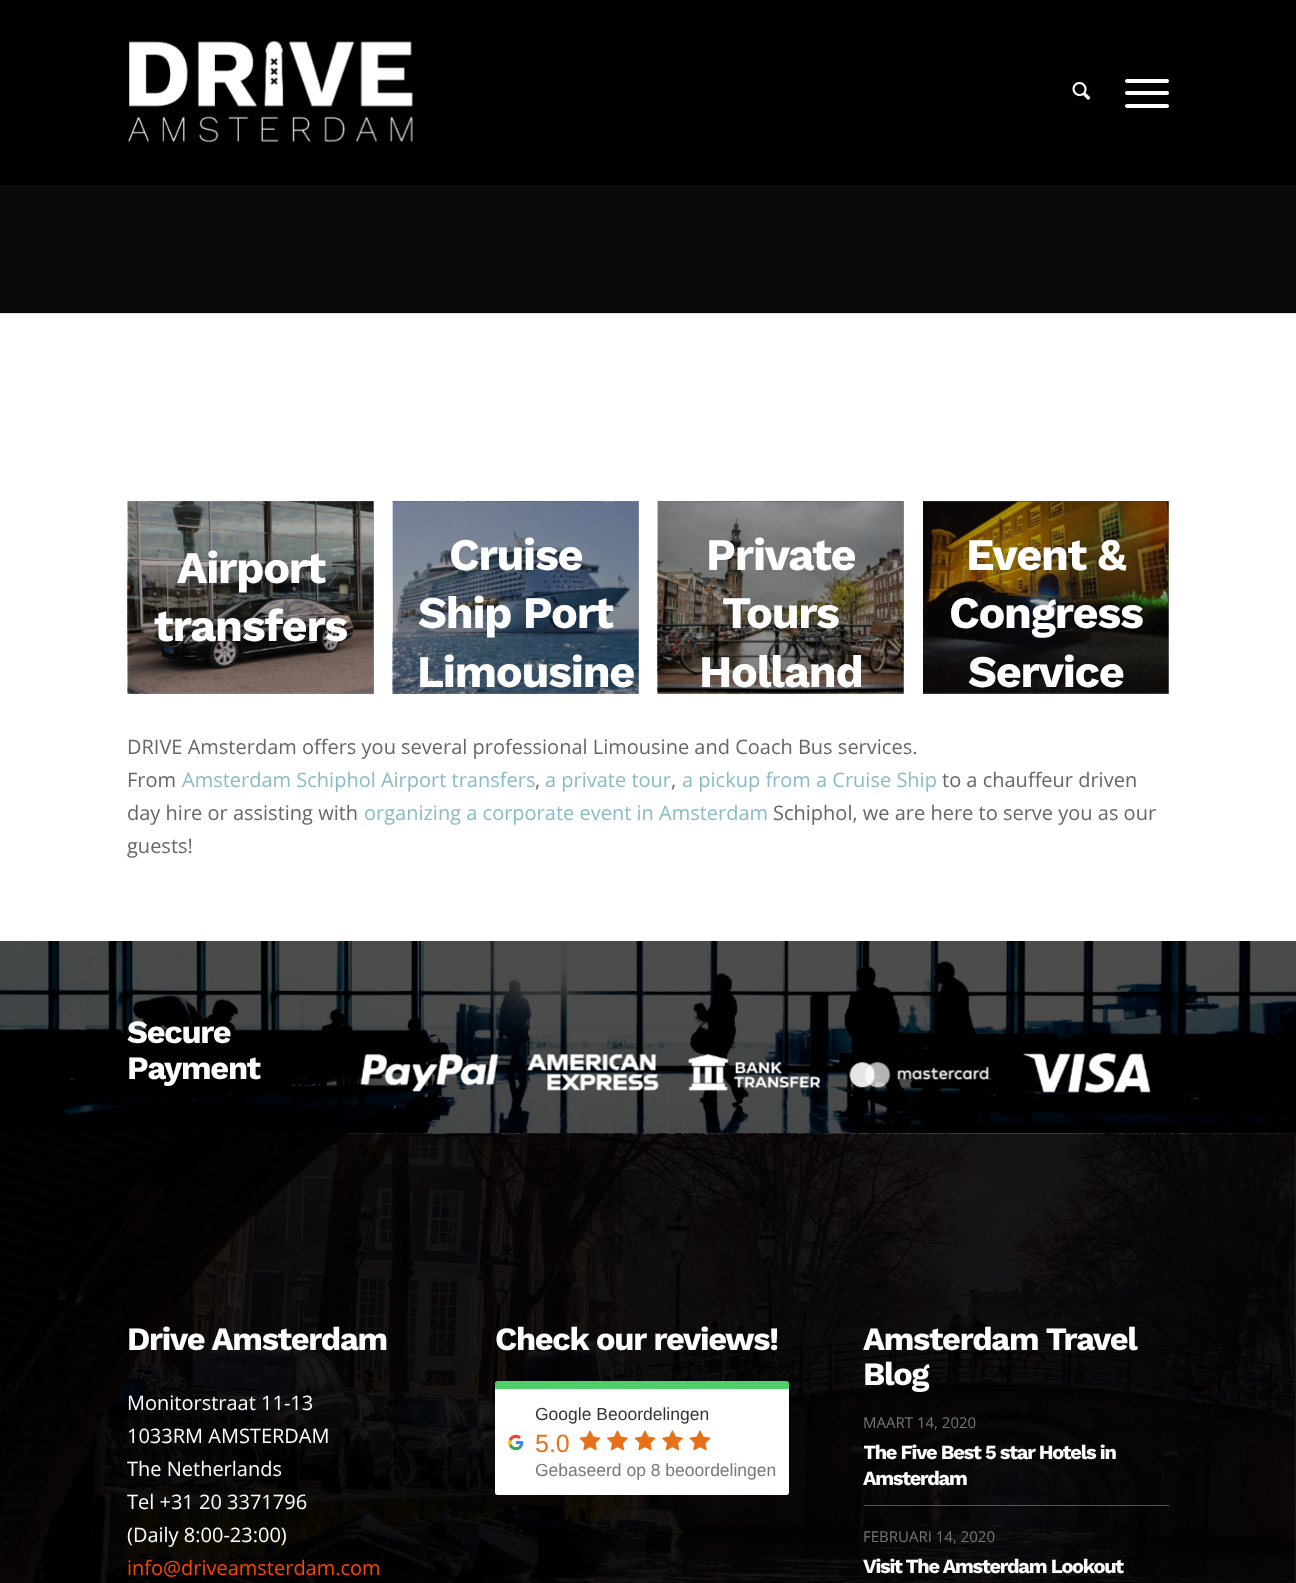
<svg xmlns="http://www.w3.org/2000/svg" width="1296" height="1583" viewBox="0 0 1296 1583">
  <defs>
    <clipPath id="clip1"><rect x="864" y="1405" width="305" height="100"/></clipPath>
  </defs>
  <rect width="100%" height="100%" fill="rgb(255,255,255)"/>
  <rect x="0" y="0" width="1296" height="185" fill="rgb(0,0,0)"/>
  <image x="128" y="40" width="285" height="103" href="pic1.png"/>
  <image x="1072" y="82" width="19" height="18" href="pic2.png"/>
  <rect x="1125" y="91" width="44" height="4" rx="2" fill="rgb(255,255,255)"/>
  <rect x="1125" y="79" width="44" height="4" rx="2" fill="rgb(255,255,255)"/>
  <rect x="1125" y="104" width="44" height="4" rx="2" fill="rgb(255,255,255)"/>
  <rect x="0" y="185" width="1296" height="128" fill="rgb(9,9,9)"/>
  <rect x="923" y="501" width="246" height="193" fill="rgb(166,166,166)"/>
  <rect x="658" y="501" width="246" height="193" fill="rgb(166,166,166)"/>
  <rect x="393" y="501" width="246" height="193" fill="rgb(166,166,166)"/>
  <rect x="128" y="501" width="246" height="193" fill="rgb(166,166,166)"/>
  <rect x="0" y="313" width="1296" height="1" fill="rgb(225,225,225)"/>
  <image x="127" y="501" width="247" height="193" href="pic3.png"/>
  <g font-family="Work Sans" font-size="45" font-weight="bold" letter-spacing="-1.25" fill="rgb(255,255,255)">
    <text x="177" y="583">Airport</text>
    <text x="154" y="641">transfers</text>
  </g>
  <image x="392" y="501" width="247" height="193" href="pic4.png"/>
  <g font-family="Work Sans" font-size="45" font-weight="bold" letter-spacing="-1.25" fill="rgb(255,255,255)">
    <text x="449" y="570">Cruise</text>
    <text x="418" y="628">Ship Port</text>
    <text x="417" y="687">Limousine</text>
  </g>
  <image x="657" y="501" width="247" height="193" href="pic5.png"/>
  <g font-family="Work Sans" font-size="45" font-weight="bold" letter-spacing="-1.25" fill="rgb(255,255,255)">
    <text x="706" y="570">Private</text>
    <text x="722" y="628">Tours</text>
    <text x="699" y="687">Holland</text>
  </g>
  <image x="923" y="501" width="246" height="193" href="pic6.png"/>
  <g font-family="Work Sans" font-size="45" font-weight="bold" letter-spacing="-1.25" fill="rgb(255,255,255)">
    <text x="966" y="570">Event &amp;</text>
    <text x="949" y="628">Congress</text>
    <text x="968" y="687">Service</text>
  </g>
  <g font-family="Open Sans" font-size="20" fill="rgb(102,102,102)">
    <text>
      <tspan x="127" y="754">DRIVE Amsterdam offers you several professional Limousine and Coach Bus services.</tspan>
      <tspan x="127" y="787">From</tspan>
    </text>
  </g>
  <text x="182" y="787" font-family="Open Sans" font-size="20" fill="rgb(136,187,200)">Amsterdam Schiphol Airport transfers</text>
  <text x="535" y="787" font-family="Open Sans" font-size="20" fill="rgb(102,102,102)">,</text>
  <text x="545" y="787" font-family="Open Sans" font-size="20" fill="rgb(136,187,200)">a private tour</text>
  <text x="671" y="787" font-family="Open Sans" font-size="20" fill="rgb(102,102,102)">,</text>
  <text x="682" y="787" font-family="Open Sans" font-size="20" fill="rgb(136,187,200)">a pickup from a Cruise Ship</text>
  <g font-family="Open Sans" font-size="20" fill="rgb(102,102,102)">
    <text x="942" y="787">to a chauffeur driven</text>
    <text x="127" y="820">day hire or assisting with</text>
  </g>
  <text x="364" y="820" font-family="Open Sans" font-size="20" fill="rgb(136,187,200)">organizing a corporate event in Amsterdam</text>
  <g font-family="Open Sans" font-size="20" fill="rgb(102,102,102)">
    <text x="773" y="820">Schiphol, we are here to serve you as our</text>
    <text x="127" y="853">guests!</text>
  </g>
  <image x="0" y="941" width="1296" height="193" href="pic7.png"/>
  <image x="0" y="1133" width="1296" height="450" href="pic13.png"/>
  <rect x="0" y="941" width="1296" height="193" fill="rgba(0,0,0,0.7)"/>
  <g font-family="Work Sans" font-size="32.5" font-weight="bold" letter-spacing="-1.25" fill="rgb(255,255,255)">
    <text>
      <tspan x="127" y="1043">Secure</tspan>
      <tspan x="127" y="1079">Payment</tspan>
    </text>
  </g>
  <image x="360" y="1054" width="138" height="38" href="pic8.png"/>
  <image x="527" y="1054" width="132" height="37" href="pic9.png"/>
  <image x="687" y="1054" width="134" height="38" href="pic10.png"/>
  <image x="849" y="1062" width="143" height="26" href="pic11.png"/>
  <image x="1023" y="1053" width="128" height="41" href="pic12.png"/>
  <text x="127" y="1350" font-family="Work Sans" font-size="32.5" font-weight="bold" letter-spacing="-1.25" fill="rgb(255,255,255)">Drive Amsterdam</text>
  <g font-family="Open Sans" font-size="20" fill="rgb(255,255,255)">
    <text>
      <tspan x="127" y="1410">Monitorstraat 11-13</tspan>
      <tspan x="127" y="1443">1033RM AMSTERDAM</tspan>
      <tspan x="127" y="1476">The Netherlands</tspan>
      <tspan x="127" y="1509">Tel +31 20 3371796</tspan>
      <tspan x="127" y="1542">(Daily 8:00-23:00)</tspan>
    </text>
  </g>
  <text x="127" y="1575" font-family="Open Sans" font-size="20" fill="rgb(255,68,0)">info@driveamsterdam.com</text>
  <text x="495" y="1350" font-family="Work Sans" font-size="32.5" font-weight="bold" letter-spacing="-1.25" fill="rgb(255,255,255)">Check our reviews!</text>
  <path d="M497.5 1381H786.5C788 1381 789 1382 789 1383.5V1389H495V1383.5C495 1382 496 1381 497.5 1381Z" fill="rgb(79,206,106)"/>
  <path d="M495 1389H789V1492.5C789 1494 788 1495 786.5 1495H497.5C496 1495 495 1494 495 1492.5Z" fill="rgb(255,255,255)"/>
  <image x="508" y="1434" width="16" height="17" href="pic14.png"/>
  <text x="535" y="1420" font-family="Liberation Sans" font-size="17.5" fill="rgb(51,51,51)">Google Beoordelingen</text>
  <text x="535" y="1452" font-family="Liberation Sans" font-size="25" fill="rgb(231,113,27)">5.0</text>
  <image x="579" y="1430" width="22" height="21" href="pic15.png"/>
  <image x="607" y="1430" width="21" height="21" href="pic16.png"/>
  <image x="634" y="1430" width="22" height="21" href="pic15.png"/>
  <image x="662" y="1430" width="21" height="21" href="pic16.png"/>
  <image x="689" y="1430" width="22" height="21" href="pic15.png"/>
  <text x="535" y="1476" font-family="Liberation Sans" font-size="17.5" fill="rgb(119,119,119)">Gebaseerd op 8 beoordelingen</text>
  <g font-family="Work Sans" font-size="32.5" font-weight="bold" letter-spacing="-1.25" fill="rgb(255,255,255)">
    <text>
      <tspan x="863" y="1350">Amsterdam Travel</tspan>
      <tspan x="863" y="1385">Blog</tspan>
    </text>
  </g>
  <rect x="864" y="1505" width="305" height="1" fill="rgb(85,85,85)"/>
  <text x="863" y="1428" font-family="Open Sans" font-size="15" fill="rgb(119,119,119)">MAART 14, 2020</text>
  <g clip-path="url(#clip1)">
    <text x="863" y="1459" font-family="Work Sans" font-size="20" font-weight="bold" letter-spacing="-1.25" fill="rgb(255,255,255)">The Five Best 5 star Hotels in</text>
  </g>
  <text x="863" y="1485" font-family="Work Sans" font-size="20" font-weight="bold" letter-spacing="-1.25" fill="rgb(255,255,255)">Amsterdam</text>
  <text x="863" y="1542" font-family="Open Sans" font-size="15" fill="rgb(119,119,119)">FEBRUARI 14, 2020</text>
  <text x="863" y="1573" font-family="Work Sans" font-size="20" font-weight="bold" letter-spacing="-1.25" fill="rgb(255,255,255)">Visit The Amsterdam Lookout</text>
</svg>
